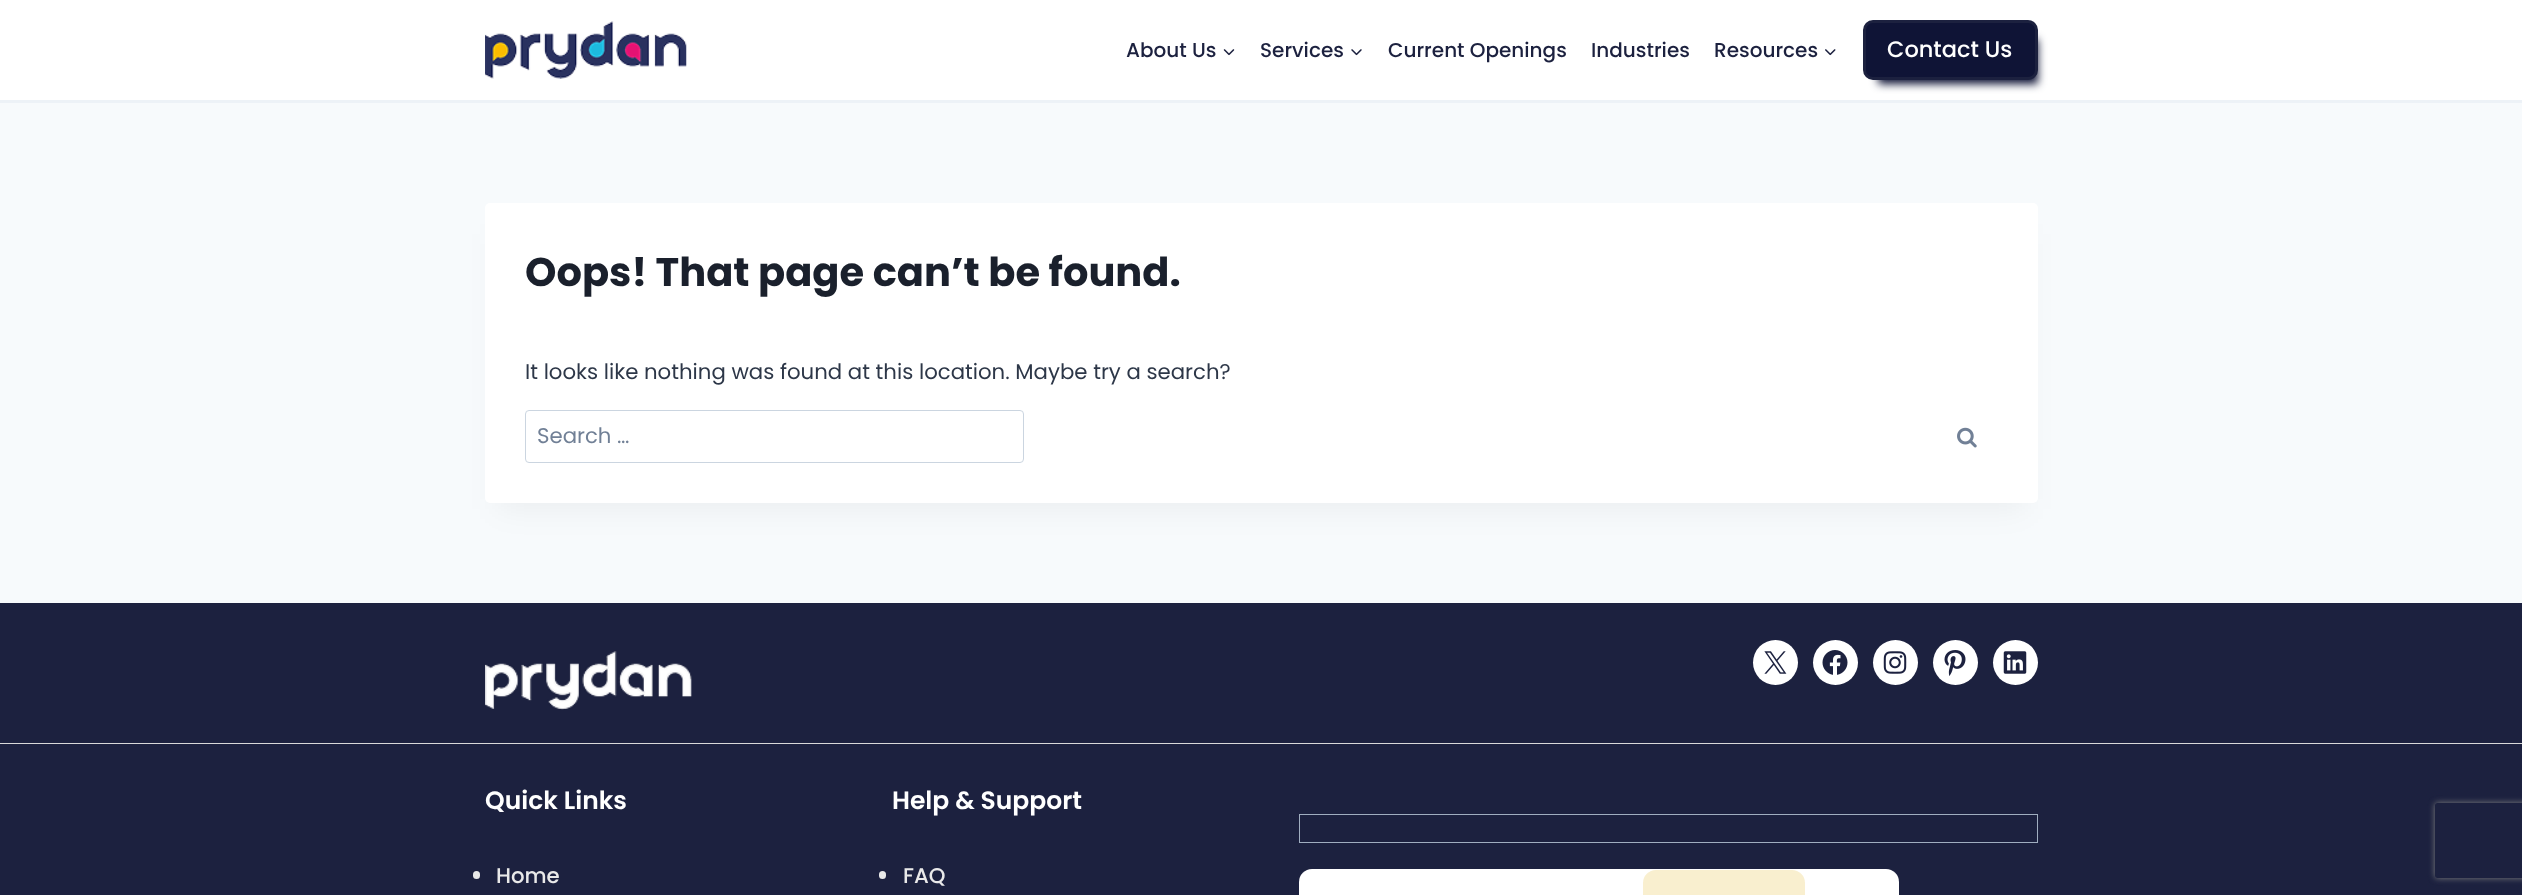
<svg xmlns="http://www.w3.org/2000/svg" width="2522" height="895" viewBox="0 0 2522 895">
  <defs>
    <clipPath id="clip1"><path d="M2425 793H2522V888H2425ZM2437.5 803H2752.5C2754 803 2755 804 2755 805.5V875.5C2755 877 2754 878 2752.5 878H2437.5C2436 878 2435 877 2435 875.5V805.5C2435 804 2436 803 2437.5 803Z" clip-rule="evenodd"/></clipPath>
  </defs>
  <rect width="100%" height="100%" fill="rgb(247,250,252)"/>
  <rect x="0" y="0" width="2522" height="100" fill="rgb(255,255,255)"/>
  <rect x="0" y="100" width="2522" height="3" fill="rgb(237,242,247)"/>
  <image x="485" y="21" width="202" height="58" href="pic1.png"/>
  <text x="1126" y="57" font-family="Poppins" font-size="20" font-weight="500" fill="rgb(28,33,63)">About Us</text>
  <image x="1223" y="49" width="12" height="7" href="pic2.png"/>
  <text x="1260" y="57" font-family="Poppins" font-size="20" font-weight="500" fill="rgb(28,33,63)">Services</text>
  <image x="1351" y="49" width="11" height="7" href="pic3.png"/>
  <g font-family="Poppins" font-size="20" font-weight="500" fill="rgb(28,33,63)">
    <text x="1388" y="57">Current Openings</text>
    <text x="1591" y="57">Industries</text>
    <text x="1714" y="57">Resources</text>
  </g>
  <image x="1825" y="49" width="11" height="7" href="pic4.png"/>
  <rect x="1878" y="39" width="160" height="45" rx="2.5" fill="rgb(15,20,54)" filter="blur(4px)"/>
  <rect x="1864.5" y="21.5" width="172" height="57" rx="8.5" fill="rgb(15,20,54)" stroke="rgb(28,33,63)" stroke-width="3"/>
  <text x="1887" y="57" font-family="Poppins" font-size="22.5" font-weight="500" fill="rgb(255,255,255)">Contact Us</text>
  <rect x="498" y="234" width="1527" height="275" fill="rgba(0,0,0,0.05)" filter="blur(15.5px)"/>
  <rect x="485" y="203" width="1553" height="300" rx="5" fill="rgb(255,255,255)"/>
  <text x="525" y="286" font-family="Poppins" font-size="40" font-weight="bold" fill="rgb(26,32,44)">Oops! That page can’t be found.</text>
  <text x="525" y="379" font-family="Poppins" font-size="21.25" fill="rgb(45,55,72)">It looks like nothing was found at this location. Maybe try a search?</text>
  <rect x="525.5" y="410.5" width="498" height="52" rx="3.5" fill="none" stroke="rgb(203,213,224)"/>
  <text x="537" y="443" font-family="Poppins" font-size="21.25" fill="rgb(113,128,150)">Search …</text>
  <image x="1957" y="427" width="20" height="21" href="pic5.png"/>
  <rect x="0" y="603" width="2522" height="140" fill="rgb(28,33,63)"/>
  <rect x="0" y="743" width="2522" height="1" fill="rgb(217,217,217)"/>
  <image x="485" y="651" width="207" height="59" href="pic6.png"/>
  <circle cx="1775.5" cy="662.5" r="22.5" fill="rgb(255,255,255)"/>
  <image x="1764" y="651" width="23" height="23" href="pic7.png"/>
  <circle cx="1835.5" cy="662.5" r="22.5" fill="rgb(255,255,255)"/>
  <image x="1822" y="650" width="26" height="25" href="pic8.png"/>
  <circle cx="1895.5" cy="662.5" r="22.5" fill="rgb(255,255,255)"/>
  <image x="1883" y="651" width="24" height="23" href="pic9.png"/>
  <circle cx="1955.5" cy="662.5" r="22.5" fill="rgb(255,255,255)"/>
  <image x="1944" y="650" width="22" height="26" href="pic10.png"/>
  <circle cx="2015.5" cy="662.5" r="22.5" fill="rgb(255,255,255)"/>
  <image x="2003" y="651" width="24" height="23" href="pic11.png"/>
  <rect x="0" y="744" width="2522" height="151" fill="rgb(28,33,63)"/>
  <text x="485" y="809" font-family="Poppins" font-size="25" font-weight="600" fill="rgb(255,255,255)">Quick Links</text>
  <rect x="473" y="871" width="7" height="8" rx="3.5" fill="rgb(233,233,233)"/>
  <text x="496" y="883" font-family="Poppins" font-size="21.25" font-weight="500" fill="rgb(233,233,233)">Home</text>
  <text x="892" y="809" font-family="Poppins" font-size="25" font-weight="600" fill="rgb(255,255,255)">Help &amp; Support</text>
  <rect x="879" y="871" width="7" height="8" rx="3.5" fill="rgb(233,233,233)"/>
  <text x="903" y="883" font-family="Poppins" font-size="21.25" font-weight="500" fill="rgb(233,233,233)">FAQ</text>
  <rect x="1299.5" y="814.5" width="738" height="28" fill="none" stroke="rgb(160,174,192)"/>
  <rect x="1299" y="869" width="600" height="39" rx="13" fill="rgb(255,255,255)"/>
  <rect x="1643" y="870" width="162" height="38" rx="13" fill="rgb(249,239,207)"/>
  <g clip-path="url(#clip1)">
    <rect x="2435" y="803" width="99" height="75" rx="2.5" fill="rgb(128,128,128)" filter="blur(3px)"/>
  </g>
</svg>
